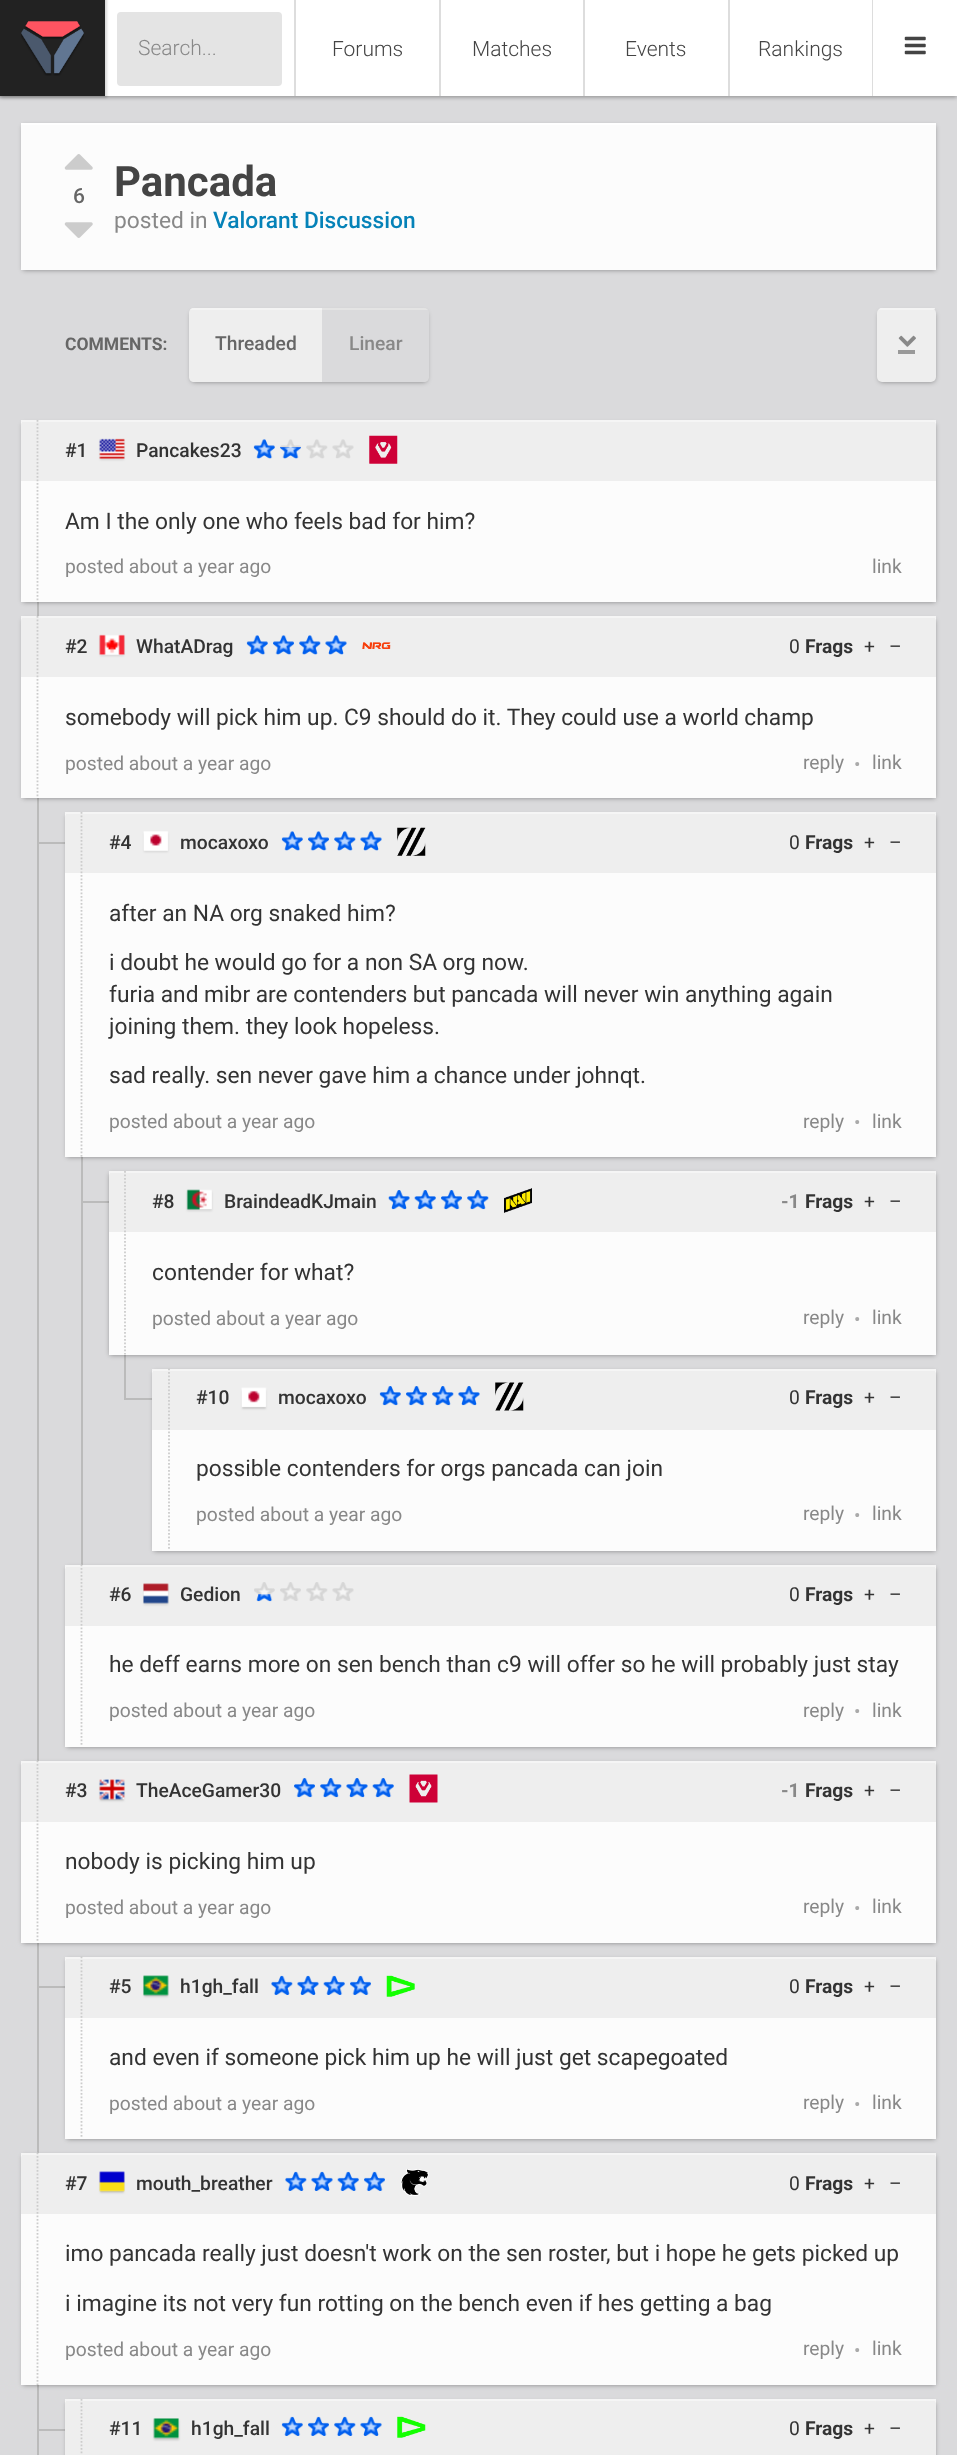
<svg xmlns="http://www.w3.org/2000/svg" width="957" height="2455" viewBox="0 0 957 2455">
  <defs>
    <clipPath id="clip1"><rect x="189" y="308" width="240" height="74" rx="5"/></clipPath>
    <clipPath id="clip2"><path d="M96 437H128V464H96ZM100 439H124V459H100Z" clip-rule="evenodd"/></clipPath>
    <clipPath id="clip3"><path d="M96 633H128V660H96ZM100 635H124V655H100Z" clip-rule="evenodd"/></clipPath>
    <clipPath id="clip4"><path d="M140 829H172V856H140ZM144 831H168V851H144Z" clip-rule="evenodd"/></clipPath>
    <clipPath id="clip5"><path d="M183 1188H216V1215H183ZM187 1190H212V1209H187Z" clip-rule="evenodd"/></clipPath>
    <clipPath id="clip6"><rect x="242" y="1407" width="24" height="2"/></clipPath>
    <clipPath id="clip7"><path d="M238 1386H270V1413H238ZM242 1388H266V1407H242Z" clip-rule="evenodd"/></clipPath>
    <clipPath id="clip8"><path d="M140 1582H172V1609H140ZM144 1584H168V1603H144Z" clip-rule="evenodd"/></clipPath>
    <clipPath id="clip9"><rect x="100" y="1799" width="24" height="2"/></clipPath>
    <clipPath id="clip10"><path d="M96 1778H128V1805H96ZM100 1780H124V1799H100Z" clip-rule="evenodd"/></clipPath>
    <clipPath id="clip11"><rect x="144" y="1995" width="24" height="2"/></clipPath>
    <clipPath id="clip12"><path d="M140 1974H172V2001H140ZM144 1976H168V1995H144Z" clip-rule="evenodd"/></clipPath>
    <clipPath id="clip13"><rect x="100" y="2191" width="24" height="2"/></clipPath>
    <clipPath id="clip14"><path d="M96 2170H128V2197H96ZM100 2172H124V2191H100Z" clip-rule="evenodd"/></clipPath>
    <clipPath id="clip15"><path d="M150 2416H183V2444H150ZM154 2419H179V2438H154Z" clip-rule="evenodd"/></clipPath>
  </defs>
  <rect width="100%" height="100%" fill="rgb(218,218,220)"/>
  <rect x="0" y="93" width="957" height="4" fill="rgba(0,0,0,0.4)" filter="blur(2px)"/>
  <rect x="105" y="0" width="189" height="96" fill="rgb(255,255,255)"/>
  <rect x="-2" y="-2" width="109" height="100" fill="rgba(0,0,0,0.15)" filter="blur(1px)"/>
  <rect x="0" y="0" width="105" height="96" fill="rgb(34,34,34)"/>
  <image x="21" y="21" width="63" height="55" href="pic1.png"/>
  <rect x="294" y="0" width="2" height="96" fill="rgb(221,221,221)"/>
  <rect x="117" y="12" width="165" height="74" rx="4" fill="rgb(228,228,228)"/>
  <text x="138" y="55" font-family="Roboto" font-size="21" font-weight="300" fill="rgb(136,136,136)">Search...</text>
  <rect x="296" y="0" width="143" height="96" fill="rgb(255,255,255)"/>
  <rect x="439" y="0" width="2" height="96" fill="rgb(221,221,221)"/>
  <text x="332" y="56" font-family="Roboto" font-size="21" font-weight="300" fill="rgb(68,68,68)">Forums</text>
  <rect x="441" y="0" width="142" height="96" fill="rgb(255,255,255)"/>
  <rect x="583" y="0" width="2" height="96" fill="rgb(221,221,221)"/>
  <text x="472" y="56" font-family="Roboto" font-size="21" font-weight="300" fill="rgb(68,68,68)">Matches</text>
  <rect x="585" y="0" width="143" height="96" fill="rgb(255,255,255)"/>
  <rect x="728" y="0" width="2" height="96" fill="rgb(221,221,221)"/>
  <text x="625" y="56" font-family="Roboto" font-size="21" font-weight="300" fill="rgb(68,68,68)">Events</text>
  <rect x="730" y="0" width="142" height="96" fill="rgb(255,255,255)"/>
  <rect x="872" y="0" width="1" height="96" fill="rgb(221,221,221)"/>
  <text x="758" y="56" font-family="Roboto" font-size="21" font-weight="300" fill="rgb(68,68,68)">Rankings</text>
  <rect x="873" y="0" width="84" height="96" fill="rgb(255,255,255)"/>
  <image x="904" y="36" width="22" height="19" href="pic2.png"/>
  <rect x="23" y="126" width="912" height="144" fill="rgba(0,0,0,0.4)" filter="blur(2.5px)"/>
  <rect x="21" y="125" width="915" height="145" fill="rgb(252,252,252)"/>
  <rect x="21" y="123" width="915" height="2" fill="rgb(255,255,255)"/>
  <image x="64" y="154" width="29" height="16" href="pic3.png"/>
  <text x="73" y="203" font-family="Roboto" font-size="21" font-weight="500" fill="rgb(102,102,102)">6</text>
  <image x="64" y="222" width="29" height="16" href="pic4.png"/>
  <text x="114" y="196" font-family="Roboto" font-size="42" font-weight="bold" fill="rgb(68,68,68)">Pancada</text>
  <text x="114" y="228" font-family="Roboto" font-size="22.75" fill="rgb(136,136,136)">posted in</text>
  <text x="213" y="228" font-family="Roboto" font-size="22.75" font-weight="500" fill="rgb(5,130,184)">Valorant Discussion</text>
  <text x="65" y="350" font-family="Roboto" font-size="17.5" font-weight="bold" fill="rgb(102,102,102)">COMMENTS:</text>
  <rect x="191" y="312" width="236" height="70" rx="4" fill="rgba(0,0,0,0.4)" filter="blur(2.5px)"/>
  <path d="M194 308H322V382H194C191 382 189 380 189 377V313C189 310 191 308 194 308Z" fill="rgb(238,238,238)"/>
  <g clip-path="url(#clip1)">
    <rect x="189" y="308" width="133" height="2" fill="rgb(244,244,244)"/>
  </g>
  <text x="215" y="350" font-family="Roboto" font-size="19.25" font-weight="500" fill="rgb(102,102,102)">Threaded</text>
  <path d="M322 308H424C427 308 429 310 429 313V377C429 380 427 382 424 382H322Z" fill="rgb(218,218,220)"/>
  <g clip-path="url(#clip1)">
    <rect x="322" y="308" width="107" height="2" fill="rgb(228,228,228)"/>
  </g>
  <text x="349" y="350" font-family="Roboto" font-size="19.25" font-weight="500" fill="rgb(136,136,136)">Linear</text>
  <rect x="879" y="312" width="56" height="70" rx="4" fill="rgba(0,0,0,0.4)" filter="blur(2.5px)"/>
  <rect x="877" y="308" width="59" height="74" rx="5" fill="rgb(238,238,238)"/>
  <path d="M881 308H935C935 309 934 310 933 310H879C879 309 880 308 881 308Z" fill="rgb(244,244,244)"/>
  <rect x="898" y="350" width="17" height="4" fill="rgb(153,153,153)"/>
  <image x="898" y="335" width="18" height="12" href="pic5.png"/>
  <rect x="37" y="602" width="2" height="14" fill="rgb(187,187,187)"/>
  <rect x="23" y="424" width="912" height="178" fill="rgba(0,0,0,0.4)" filter="blur(2.5px)"/>
  <rect x="21" y="422" width="915" height="180" fill="rgb(252,252,252)"/>
  <path d="M26 420H931C934 420 936 422 936 425V481H21V425C21 422 23 420 26 420Z" fill="rgb(238,238,238)"/>
  <rect x="21" y="420" width="915" height="2" fill="rgb(245,245,245)"/>
  <path d="M37.5 420V602" fill="none" stroke="rgb(204,204,204)" stroke-width="1.8" stroke-dasharray="1.75 1.75"/>
  <text x="65" y="457" font-family="Roboto" font-size="19.25" font-weight="500" fill="rgb(51,51,51)">#1</text>
  <image x="99" y="438" width="26" height="21" href="pic6.png"/>
  <g clip-path="url(#clip2)">
    <rect x="100" y="441" width="24" height="19" fill="rgba(0,0,0,0.1)" filter="blur(1px)"/>
  </g>
  <text x="136" y="457" font-family="Roboto" font-size="19.25" font-weight="500" fill="rgb(51,51,51)">Pancakes23</text>
  <image x="253" y="439" width="22" height="20" href="pic7.png"/>
  <image x="280" y="439" width="21" height="20" href="pic8.png"/>
  <image x="306" y="439" width="22" height="20" href="pic9.png"/>
  <image x="332" y="439" width="22" height="20" href="pic10.png"/>
  <image x="369" y="435" width="29" height="29" href="pic11.png"/>
  <text x="65" y="529" font-family="Roboto" font-size="22.75" fill="rgb(51,51,51)">Am I the only one who feels bad for him?</text>
  <g font-family="Roboto" font-size="19.25" fill="rgb(136,136,136)">
    <text x="65" y="573">posted about a year ago</text>
    <text x="872" y="573">link</text>
  </g>
  <rect x="37" y="842" width="31" height="2" fill="rgb(187,187,187)"/>
  <rect x="37" y="798" width="2" height="963" fill="rgb(187,187,187)"/>
  <rect x="23" y="620" width="912" height="178" fill="rgba(0,0,0,0.4)" filter="blur(2.5px)"/>
  <rect x="21" y="618" width="915" height="180" fill="rgb(252,252,252)"/>
  <path d="M26 616H931C934 616 936 618 936 621V677H21V621C21 618 23 616 26 616Z" fill="rgb(238,238,238)"/>
  <rect x="21" y="616" width="915" height="2" fill="rgb(245,245,245)"/>
  <path d="M37.5 616V798" fill="none" stroke="rgb(204,204,204)" stroke-width="1.8" stroke-dasharray="1.75 1.75"/>
  <text x="65" y="653" font-family="Roboto" font-size="19.25" font-weight="500" fill="rgb(51,51,51)">#2</text>
  <image x="99" y="634" width="26" height="21" href="pic12.png"/>
  <g clip-path="url(#clip3)">
    <rect x="100" y="637" width="24" height="19" fill="rgba(0,0,0,0.1)" filter="blur(1px)"/>
  </g>
  <text x="136" y="653" font-family="Roboto" font-size="19.25" font-weight="500" fill="rgb(51,51,51)">WhatADrag</text>
  <image x="246" y="635" width="22" height="20" href="pic7.png"/>
  <image x="273" y="635" width="21" height="20" href="pic13.png"/>
  <image x="299" y="635" width="22" height="20" href="pic14.png"/>
  <image x="325" y="635" width="22" height="20" href="pic15.png"/>
  <image x="362" y="642" width="29" height="7" href="pic16.png"/>
  <text x="789" y="653" font-family="Roboto" font-size="19.25" fill="rgb(51,51,51)">0</text>
  <text x="805" y="653" font-family="Roboto" font-size="19.25" font-weight="bold" fill="rgb(51,51,51)">Frags</text>
  <g font-family="Roboto" font-size="19.25" fill="rgb(51,51,51)">
    <text x="864" y="653">+</text>
    <text x="889" y="653">–</text>
  </g>
  <text x="65" y="725" font-family="Roboto" font-size="22.75" fill="rgb(51,51,51)">somebody will pick him up. C9 should do it. They could use a world champ</text>
  <g font-family="Roboto" font-size="19.25" fill="rgb(136,136,136)">
    <text x="65" y="770">posted about a year ago</text>
    <text x="803" y="769">reply</text>
  </g>
  <text x="854" y="771" font-family="Roboto" font-size="19.25" fill="rgb(170,170,170)">•</text>
  <text x="872" y="769" font-family="Roboto" font-size="19.25" fill="rgb(136,136,136)">link</text>
  <rect x="81" y="1201" width="31" height="2" fill="rgb(187,187,187)"/>
  <rect x="81" y="1157" width="2" height="408" fill="rgb(187,187,187)"/>
  <rect x="67" y="816" width="868" height="341" fill="rgba(0,0,0,0.4)" filter="blur(2.5px)"/>
  <rect x="65" y="814" width="871" height="343" fill="rgb(252,252,252)"/>
  <path d="M70 812H931C934 812 936 814 936 817V873H65V817C65 814 67 812 70 812Z" fill="rgb(238,238,238)"/>
  <rect x="65" y="812" width="871" height="2" fill="rgb(245,245,245)"/>
  <path d="M81.5 812V1157" fill="none" stroke="rgb(204,204,204)" stroke-width="1.8" stroke-dasharray="1.75 1.75"/>
  <text x="109" y="849" font-family="Roboto" font-size="19.25" font-weight="500" fill="rgb(51,51,51)">#4</text>
  <image x="143" y="831" width="26" height="20" href="pic17.png"/>
  <g clip-path="url(#clip4)">
    <rect x="144" y="833" width="24" height="19" fill="rgba(0,0,0,0.1)" filter="blur(1px)"/>
  </g>
  <text x="180" y="849" font-family="Roboto" font-size="19.25" font-weight="500" fill="rgb(51,51,51)">mocaxoxo</text>
  <image x="281" y="831" width="22" height="20" href="pic7.png"/>
  <image x="308" y="831" width="21" height="20" href="pic18.png"/>
  <image x="334" y="831" width="22" height="20" href="pic14.png"/>
  <image x="360" y="831" width="22" height="20" href="pic19.png"/>
  <image x="397" y="827" width="29" height="29" href="pic20.png"/>
  <text x="789" y="849" font-family="Roboto" font-size="19.25" fill="rgb(51,51,51)">0</text>
  <text x="805" y="849" font-family="Roboto" font-size="19.25" font-weight="bold" fill="rgb(51,51,51)">Frags</text>
  <g font-family="Roboto" font-size="19.25" fill="rgb(51,51,51)">
    <text x="864" y="849">+</text>
    <text x="889" y="849">–</text>
  </g>
  <g font-family="Roboto" font-size="22.75" fill="rgb(51,51,51)">
    <text x="109" y="921">after an NA org snaked him?</text>
    <text>
      <tspan x="109" y="970">i doubt he would go for a non SA org now.</tspan>
      <tspan x="109" y="1002">furia and mibr are contenders but pancada will never win anything again</tspan>
      <tspan x="109" y="1034">joining them. they look hopeless.</tspan>
    </text>
    <text x="109" y="1083">sad really. sen never gave him a chance under johnqt.</text>
  </g>
  <g font-family="Roboto" font-size="19.25" fill="rgb(136,136,136)">
    <text x="109" y="1128">posted about a year ago</text>
    <text x="803" y="1128">reply</text>
  </g>
  <text x="854" y="1129" font-family="Roboto" font-size="19.25" fill="rgb(170,170,170)">•</text>
  <text x="872" y="1128" font-family="Roboto" font-size="19.25" fill="rgb(136,136,136)">link</text>
  <rect x="124" y="1398" width="32" height="2" fill="rgb(187,187,187)"/>
  <rect x="124" y="1351" width="2" height="49" fill="rgb(187,187,187)"/>
  <rect x="110" y="1174" width="825" height="181" fill="rgba(0,0,0,0.4)" filter="blur(2.5px)"/>
  <rect x="109" y="1173" width="827" height="182" fill="rgb(252,252,252)"/>
  <path d="M114 1171H931C934 1171 936 1173 936 1176V1232H109V1176C109 1173 111 1171 114 1171Z" fill="rgb(238,238,238)"/>
  <rect x="109" y="1171" width="827" height="2" fill="rgb(245,245,245)"/>
  <path d="M125 1171V1354.5" fill="none" stroke="rgb(204,204,204)" stroke-width="1.8" stroke-dasharray="1.75 1.75"/>
  <text x="152" y="1208" font-family="Roboto" font-size="19.25" font-weight="500" fill="rgb(51,51,51)">#8</text>
  <image x="186" y="1189" width="26" height="21" href="pic21.png"/>
  <g clip-path="url(#clip5)">
    <rect x="187" y="1192" width="25" height="19" fill="rgba(0,0,0,0.1)" filter="blur(1px)"/>
  </g>
  <text x="224" y="1208" font-family="Roboto" font-size="19.25" font-weight="500" fill="rgb(51,51,51)">BraindeadKJmain</text>
  <image x="388" y="1190" width="22" height="20" href="pic22.png"/>
  <image x="414" y="1190" width="22" height="20" href="pic23.png"/>
  <image x="441" y="1190" width="21" height="20" href="pic24.png"/>
  <image x="467" y="1190" width="22" height="20" href="pic25.png"/>
  <image x="504" y="1188" width="28" height="25" href="pic26.png"/>
  <text x="781" y="1208" font-family="Roboto" font-size="19.25" font-weight="bold" fill="rgb(136,136,136)">-1</text>
  <text x="805" y="1208" font-family="Roboto" font-size="19.25" font-weight="bold" fill="rgb(51,51,51)">Frags</text>
  <g font-family="Roboto" font-size="19.25" fill="rgb(51,51,51)">
    <text x="864" y="1208">+</text>
    <text x="889" y="1208">–</text>
  </g>
  <text x="152" y="1280" font-family="Roboto" font-size="22.75" fill="rgb(51,51,51)">contender for what?</text>
  <g font-family="Roboto" font-size="19.25" fill="rgb(136,136,136)">
    <text x="152" y="1325">posted about a year ago</text>
    <text x="803" y="1324">reply</text>
  </g>
  <text x="854" y="1326" font-family="Roboto" font-size="19.25" fill="rgb(170,170,170)">•</text>
  <text x="872" y="1324" font-family="Roboto" font-size="19.25" fill="rgb(136,136,136)">link</text>
  <rect x="154" y="1372" width="781" height="179" fill="rgba(0,0,0,0.4)" filter="blur(2.5px)"/>
  <rect x="152" y="1371" width="784" height="180" fill="rgb(252,252,252)"/>
  <path d="M157 1369H931C934 1369 936 1371 936 1374V1430H152V1374C152 1371 154 1369 157 1369Z" fill="rgb(238,238,238)"/>
  <rect x="152" y="1369" width="784" height="2" fill="rgb(245,245,245)"/>
  <path d="M169 1368.5V1550.5" fill="none" stroke="rgb(204,204,204)" stroke-width="1.8" stroke-dasharray="1.75 1.75"/>
  <text x="196" y="1404" font-family="Roboto" font-size="19.25" font-weight="500" fill="rgb(51,51,51)">#10</text>
  <image x="241" y="1387" width="26" height="21" href="pic27.png"/>
  <g clip-path="url(#clip6)">
    <rect x="242" y="1390" width="24" height="19" fill="rgba(0,0,0,0.05)" filter="blur(1px)"/>
  </g>
  <g clip-path="url(#clip7)">
    <rect x="242" y="1390" width="24" height="19" fill="rgba(0,0,0,0.1)" filter="blur(1px)"/>
  </g>
  <text x="278" y="1404" font-family="Roboto" font-size="19.25" font-weight="500" fill="rgb(51,51,51)">mocaxoxo</text>
  <image x="379" y="1386" width="22" height="20" href="pic28.png"/>
  <image x="406" y="1386" width="21" height="20" href="pic24.png"/>
  <image x="432" y="1386" width="22" height="20" href="pic25.png"/>
  <image x="458" y="1386" width="22" height="20" href="pic29.png"/>
  <image x="495" y="1382" width="29" height="29" href="pic30.png"/>
  <text x="789" y="1404" font-family="Roboto" font-size="19.25" fill="rgb(51,51,51)">0</text>
  <text x="805" y="1404" font-family="Roboto" font-size="19.25" font-weight="bold" fill="rgb(51,51,51)">Frags</text>
  <g font-family="Roboto" font-size="19.25" fill="rgb(51,51,51)">
    <text x="864" y="1404">+</text>
    <text x="889" y="1404">–</text>
  </g>
  <text x="196" y="1476" font-family="Roboto" font-size="22.75" fill="rgb(51,51,51)">possible contenders for orgs pancada can join</text>
  <g font-family="Roboto" font-size="19.25" fill="rgb(136,136,136)">
    <text x="196" y="1521">posted about a year ago</text>
    <text x="803" y="1520">reply</text>
  </g>
  <text x="854" y="1522" font-family="Roboto" font-size="19.25" fill="rgb(170,170,170)">•</text>
  <text x="872" y="1520" font-family="Roboto" font-size="19.25" fill="rgb(136,136,136)">link</text>
  <rect x="67" y="1568" width="868" height="179" fill="rgba(0,0,0,0.4)" filter="blur(2.5px)"/>
  <rect x="65" y="1567" width="871" height="180" fill="rgb(252,252,252)"/>
  <path d="M70 1565H931C934 1565 936 1567 936 1570V1626H65V1570C65 1567 67 1565 70 1565Z" fill="rgb(238,238,238)"/>
  <rect x="65" y="1565" width="871" height="2" fill="rgb(245,245,245)"/>
  <path d="M81.5 1564.5V1746.5" fill="none" stroke="rgb(204,204,204)" stroke-width="1.8" stroke-dasharray="1.75 1.75"/>
  <text x="109" y="1601" font-family="Roboto" font-size="19.25" font-weight="500" fill="rgb(51,51,51)">#6</text>
  <image x="143" y="1583" width="26" height="21" href="pic31.png"/>
  <g clip-path="url(#clip8)">
    <rect x="144" y="1586" width="24" height="19" fill="rgba(0,0,0,0.1)" filter="blur(1px)"/>
  </g>
  <text x="180" y="1601" font-family="Roboto" font-size="19.25" font-weight="500" fill="rgb(51,51,51)">Gedion</text>
  <image x="254" y="1582" width="21" height="20" href="pic32.png"/>
  <image x="280" y="1582" width="21" height="19" href="pic33.png"/>
  <image x="306" y="1582" width="22" height="19" href="pic34.png"/>
  <image x="332" y="1582" width="22" height="19" href="pic35.png"/>
  <text x="789" y="1601" font-family="Roboto" font-size="19.25" fill="rgb(51,51,51)">0</text>
  <text x="805" y="1601" font-family="Roboto" font-size="19.25" font-weight="bold" fill="rgb(51,51,51)">Frags</text>
  <g font-family="Roboto" font-size="19.25" fill="rgb(51,51,51)">
    <text x="864" y="1601">+</text>
    <text x="889" y="1601">–</text>
  </g>
  <text x="109" y="1672" font-family="Roboto" font-size="22.75" fill="rgb(51,51,51)">he deff earns more on sen bench than c9 will offer so he will probably just stay</text>
  <g font-family="Roboto" font-size="19.25" fill="rgb(136,136,136)">
    <text x="109" y="1717">posted about a year ago</text>
    <text x="803" y="1717">reply</text>
  </g>
  <text x="854" y="1718" font-family="Roboto" font-size="19.25" fill="rgb(170,170,170)">•</text>
  <text x="872" y="1717" font-family="Roboto" font-size="19.25" fill="rgb(136,136,136)">link</text>
  <rect x="37" y="1986" width="31" height="2" fill="rgb(187,187,187)"/>
  <rect x="37" y="1943" width="2" height="210" fill="rgb(187,187,187)"/>
  <rect x="23" y="1764" width="912" height="179" fill="rgba(0,0,0,0.4)" filter="blur(2.5px)"/>
  <rect x="21" y="1763" width="915" height="180" fill="rgb(252,252,252)"/>
  <path d="M26 1761H931C934 1761 936 1763 936 1766V1822H21V1766C21 1763 23 1761 26 1761Z" fill="rgb(238,238,238)"/>
  <rect x="21" y="1761" width="915" height="2" fill="rgb(245,245,245)"/>
  <path d="M37.5 1760.5V1942.5" fill="none" stroke="rgb(204,204,204)" stroke-width="1.8" stroke-dasharray="1.75 1.75"/>
  <text x="65" y="1797" font-family="Roboto" font-size="19.25" font-weight="500" fill="rgb(51,51,51)">#3</text>
  <image x="99" y="1779" width="26" height="21" href="pic36.png"/>
  <g clip-path="url(#clip9)">
    <rect x="100" y="1782" width="24" height="19" fill="rgba(0,0,0,0.05)" filter="blur(1px)"/>
  </g>
  <g clip-path="url(#clip10)">
    <rect x="100" y="1782" width="24" height="19" fill="rgba(0,0,0,0.1)" filter="blur(1px)"/>
  </g>
  <text x="136" y="1797" font-family="Roboto" font-size="19.25" font-weight="500" fill="rgb(51,51,51)">TheAceGamer30</text>
  <image x="294" y="1778" width="21" height="20" href="pic37.png"/>
  <image x="320" y="1778" width="22" height="20" href="pic25.png"/>
  <image x="346" y="1778" width="22" height="20" href="pic38.png"/>
  <image x="372" y="1778" width="22" height="20" href="pic23.png"/>
  <image x="409" y="1774" width="29" height="29" href="pic39.png"/>
  <text x="781" y="1797" font-family="Roboto" font-size="19.25" font-weight="bold" fill="rgb(136,136,136)">-1</text>
  <text x="805" y="1797" font-family="Roboto" font-size="19.25" font-weight="bold" fill="rgb(51,51,51)">Frags</text>
  <g font-family="Roboto" font-size="19.25" fill="rgb(51,51,51)">
    <text x="864" y="1797">+</text>
    <text x="889" y="1797">–</text>
  </g>
  <text x="65" y="1869" font-family="Roboto" font-size="22.75" fill="rgb(51,51,51)">nobody is picking him up</text>
  <g font-family="Roboto" font-size="19.25" fill="rgb(136,136,136)">
    <text x="65" y="1914">posted about a year ago</text>
    <text x="803" y="1913">reply</text>
  </g>
  <text x="854" y="1915" font-family="Roboto" font-size="19.25" fill="rgb(170,170,170)">•</text>
  <text x="872" y="1913" font-family="Roboto" font-size="19.25" fill="rgb(136,136,136)">link</text>
  <rect x="67" y="1960" width="868" height="179" fill="rgba(0,0,0,0.4)" filter="blur(2.5px)"/>
  <rect x="65" y="1959" width="871" height="180" fill="rgb(252,252,252)"/>
  <path d="M70 1957H931C934 1957 936 1959 936 1962V2018H65V1962C65 1959 67 1957 70 1957Z" fill="rgb(238,238,238)"/>
  <rect x="65" y="1957" width="871" height="2" fill="rgb(245,245,245)"/>
  <path d="M81.5 1956.5V2138.5" fill="none" stroke="rgb(204,204,204)" stroke-width="1.8" stroke-dasharray="1.75 1.75"/>
  <text x="109" y="1993" font-family="Roboto" font-size="19.25" font-weight="500" fill="rgb(51,51,51)">#5</text>
  <image x="143" y="1975" width="26" height="21" href="pic40.png"/>
  <g clip-path="url(#clip11)">
    <rect x="144" y="1978" width="24" height="19" fill="rgba(0,0,0,0.05)" filter="blur(1px)"/>
  </g>
  <g clip-path="url(#clip12)">
    <rect x="144" y="1978" width="24" height="19" fill="rgba(0,0,0,0.1)" filter="blur(1px)"/>
  </g>
  <text x="180" y="1993" font-family="Roboto" font-size="19.25" font-weight="500" fill="rgb(51,51,51)">h1gh_fall</text>
  <image x="271" y="1975" width="22" height="20" href="pic41.png"/>
  <image x="297" y="1975" width="22" height="20" href="pic42.png"/>
  <image x="323" y="1975" width="22" height="20" href="pic43.png"/>
  <image x="350" y="1975" width="21" height="20" href="pic44.png"/>
  <image x="386" y="1975" width="29" height="22" href="pic45.png"/>
  <text x="789" y="1993" font-family="Roboto" font-size="19.25" fill="rgb(51,51,51)">0</text>
  <text x="805" y="1993" font-family="Roboto" font-size="19.25" font-weight="bold" fill="rgb(51,51,51)">Frags</text>
  <g font-family="Roboto" font-size="19.25" fill="rgb(51,51,51)">
    <text x="864" y="1993">+</text>
    <text x="889" y="1993">–</text>
  </g>
  <text x="109" y="2065" font-family="Roboto" font-size="22.75" fill="rgb(51,51,51)">and even if someone pick him up he will just get scapegoated</text>
  <g font-family="Roboto" font-size="19.25" fill="rgb(136,136,136)">
    <text x="109" y="2110">posted about a year ago</text>
    <text x="803" y="2109">reply</text>
  </g>
  <text x="854" y="2111" font-family="Roboto" font-size="19.25" fill="rgb(170,170,170)">•</text>
  <text x="872" y="2109" font-family="Roboto" font-size="19.25" fill="rgb(136,136,136)">link</text>
  <rect x="37" y="2429" width="31" height="2" fill="rgb(187,187,187)"/>
  <rect x="37" y="2385" width="2" height="70" fill="rgb(187,187,187)"/>
  <rect x="23" y="2156" width="912" height="229" fill="rgba(0,0,0,0.4)" filter="blur(2.5px)"/>
  <rect x="21" y="2155" width="915" height="230" fill="rgb(252,252,252)"/>
  <path d="M26 2153H931C934 2153 936 2155 936 2158V2214H21V2158C21 2155 23 2153 26 2153Z" fill="rgb(238,238,238)"/>
  <rect x="21" y="2153" width="915" height="2" fill="rgb(245,245,245)"/>
  <path d="M37.5 2152.5V2385" fill="none" stroke="rgb(204,204,204)" stroke-width="1.8" stroke-dasharray="1.75 1.75"/>
  <text x="65" y="2190" font-family="Roboto" font-size="19.25" font-weight="500" fill="rgb(51,51,51)">#7</text>
  <image x="99" y="2171" width="26" height="21" href="pic46.png"/>
  <g clip-path="url(#clip13)">
    <rect x="100" y="2174" width="24" height="19" fill="rgba(0,0,0,0.05)" filter="blur(1px)"/>
  </g>
  <g clip-path="url(#clip14)">
    <rect x="100" y="2174" width="24" height="19" fill="rgba(0,0,0,0.1)" filter="blur(1px)"/>
  </g>
  <text x="136" y="2190" font-family="Roboto" font-size="19.25" font-weight="500" fill="rgb(51,51,51)">mouth_breather</text>
  <image x="285" y="2171" width="22" height="20" href="pic41.png"/>
  <image x="311" y="2171" width="22" height="20" href="pic47.png"/>
  <image x="337" y="2171" width="22" height="20" href="pic43.png"/>
  <image x="364" y="2171" width="21" height="20" href="pic44.png"/>
  <image x="400" y="2169" width="29" height="27" href="pic48.png"/>
  <text x="789" y="2190" font-family="Roboto" font-size="19.25" fill="rgb(51,51,51)">0</text>
  <text x="805" y="2190" font-family="Roboto" font-size="19.25" font-weight="bold" fill="rgb(51,51,51)">Frags</text>
  <g font-family="Roboto" font-size="19.25" fill="rgb(51,51,51)">
    <text x="864" y="2190">+</text>
    <text x="889" y="2190">–</text>
  </g>
  <g font-family="Roboto" font-size="22.75" fill="rgb(51,51,51)">
    <text x="65" y="2261">imo pancada really just doesn't work on the sen roster, but i hope he gets picked up</text>
    <text x="65" y="2311">i imagine its not very fun rotting on the bench even if hes getting a bag</text>
  </g>
  <g font-family="Roboto" font-size="19.25" fill="rgb(136,136,136)">
    <text x="65" y="2356">posted about a year ago</text>
    <text x="803" y="2355">reply</text>
  </g>
  <text x="854" y="2357" font-family="Roboto" font-size="19.25" fill="rgb(170,170,170)">•</text>
  <text x="872" y="2355" font-family="Roboto" font-size="19.25" fill="rgb(136,136,136)">link</text>
  <rect x="67" y="2403" width="868" height="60" fill="rgba(0,0,0,0.4)" filter="blur(2.5px)"/>
  <rect x="65" y="2401" width="871" height="3" fill="rgb(252,252,252)"/>
  <path d="M70 2399H931C934 2399 936 2401 936 2404V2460H65V2404C65 2401 67 2399 70 2399Z" fill="rgb(238,238,238)"/>
  <rect x="65" y="2399" width="871" height="2" fill="rgb(245,245,245)"/>
  <path d="M81.5 2399V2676" fill="none" stroke="rgb(204,204,204)" stroke-width="1.8" stroke-dasharray="1.75 1.75"/>
  <text x="109" y="2435" font-family="Roboto" font-size="19.25" font-weight="500" fill="rgb(51,51,51)">#11</text>
  <image x="153" y="2418" width="26" height="21" href="pic49.png"/>
  <g clip-path="url(#clip15)">
    <rect x="154" y="2420" width="25" height="20" fill="rgba(0,0,0,0.05)" filter="blur(1px)"/>
    <rect x="154" y="2420" width="25" height="20" fill="rgba(0,0,0,0.1)" filter="blur(1px)"/>
  </g>
  <text x="191" y="2435" font-family="Roboto" font-size="19.25" font-weight="500" fill="rgb(51,51,51)">h1gh_fall</text>
  <image x="281" y="2416" width="22" height="20" href="pic50.png"/>
  <image x="308" y="2416" width="21" height="20" href="pic51.png"/>
  <image x="334" y="2416" width="22" height="20" href="pic52.png"/>
  <image x="360" y="2416" width="22" height="20" href="pic53.png"/>
  <image x="397" y="2416" width="29" height="22" href="pic54.png"/>
  <text x="789" y="2435" font-family="Roboto" font-size="19.25" fill="rgb(51,51,51)">0</text>
  <text x="805" y="2435" font-family="Roboto" font-size="19.25" font-weight="bold" fill="rgb(51,51,51)">Frags</text>
  <g font-family="Roboto" font-size="19.25" fill="rgb(51,51,51)">
    <text x="864" y="2435">+</text>
    <text x="889" y="2435">–</text>
  </g>
</svg>
